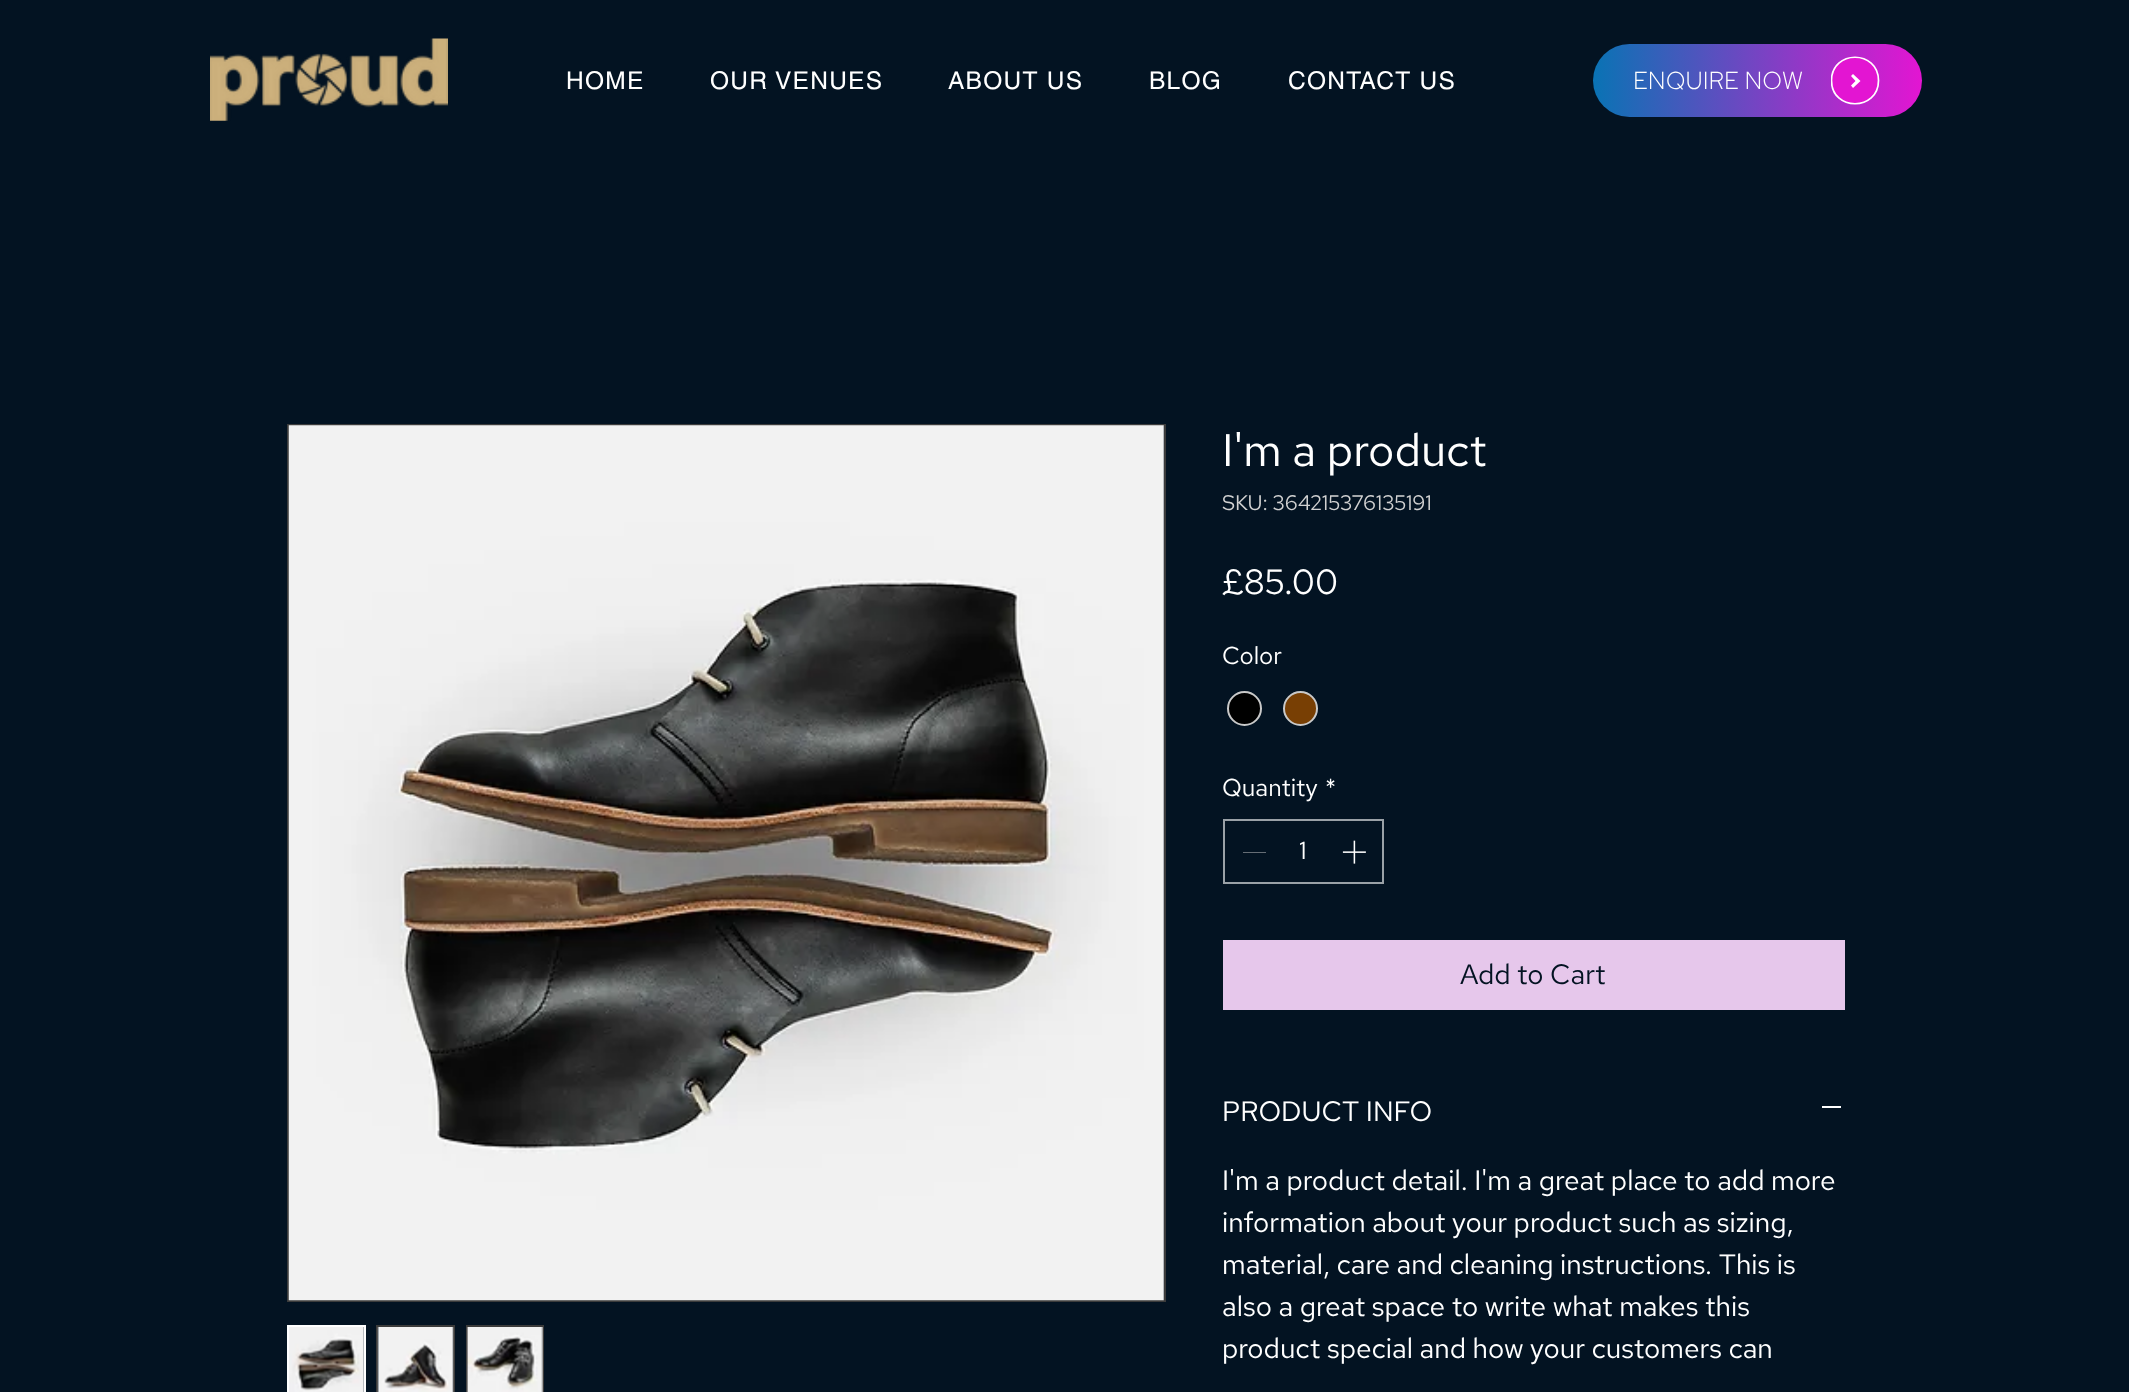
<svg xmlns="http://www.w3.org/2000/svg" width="2129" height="1392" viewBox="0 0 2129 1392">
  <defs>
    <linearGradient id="g1" gradientUnits="userSpaceOnUse" x1="1593" y1="81" x2="1922" y2="80"><stop offset="0" stop-color="rgb(9,115,180)"/><stop offset="1" stop-color="rgb(227,21,210)"/></linearGradient>
    <clipPath id="clip1"><rect x="1831" y="56" width="49" height="49"/></clipPath>
  </defs>
  <rect width="100%" height="100%" fill="rgb(3,19,34)"/>
  <image x="210" y="38" width="238" height="83" href="pic1.png"/>
  <g font-family="helvetica" font-size="24.5" letter-spacing="1.25" fill="rgb(255,255,255)">
    <text x="566" y="89">HOME</text>
    <text x="710" y="89">OUR VENUES</text>
    <text x="948" y="89">ABOUT US</text>
    <text x="1149" y="89">BLOG</text>
    <text x="1288" y="89">CONTACT US</text>
  </g>
  <rect x="1593" y="44" width="329" height="73" rx="36.5" fill="url(#g1)"/>
  <text x="1633" y="89" font-family="Red Hat Text" font-size="24.5" font-weight="300" fill="rgb(255,255,255)">ENQUIRE NOW</text>
  <path d="M1879 80C1879 112 1831 112 1831 80C1831 49 1879 49 1879 80Z" fill="rgb(227,21,210)"/>
  <g clip-path="url(#clip1)">
    <path d="M1878.5 80.5C1878.5 111.5 1831.5 111.5 1831.5 80.5C1831.5 49.5 1878.5 49.5 1878.5 80.5Z" fill="none" stroke="rgb(255,255,255)" stroke-width="1.7"/>
  </g>
  <path d="M1860.5 81L1853 88L1851 85.5L1855.5 81L1851 76L1853 74Z" fill="rgb(255,255,255)"/>
  <rect x="288" y="425" width="877" height="876" fill="none" stroke="rgb(59,59,59)" stroke-width="2"/>
  <image x="288" y="425" width="876" height="876" href="pic2.png"/>
  <rect x="288" y="1326" width="77" height="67" fill="none" stroke="rgb(255,255,255)" stroke-width="2"/>
  <image x="289" y="1327" width="75" height="65" href="pic3.png"/>
  <rect x="377" y="1326" width="77" height="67" fill="none" stroke="rgb(59,59,59)" stroke-width="2"/>
  <image x="377" y="1327" width="77" height="65" href="pic4.png"/>
  <rect x="467" y="1326" width="76" height="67" fill="none" stroke="rgb(59,59,59)" stroke-width="2"/>
  <image x="466" y="1327" width="77" height="65" href="pic5.png"/>
  <text x="1222" y="466" font-family="Red Hat Text" font-size="45.5" fill="rgb(255,255,255)">I'm a product</text>
  <text x="1222" y="510" font-family="Red Hat Text" font-size="21" fill="rgb(209,209,209)">SKU: 364215376135191</text>
  <text x="1222" y="594" font-family="Red Hat Text" font-size="35" fill="rgb(255,255,255)">£85.00</text>
  <text x="1222" y="664" font-family="Red Hat Text" font-size="24.5" fill="rgb(255,255,255)">Color</text>
  <circle cx="1244.5" cy="708.5" r="16.5" fill="rgb(0,0,0)" stroke="rgb(201,201,201)" stroke-width="2"/>
  <circle cx="1300.5" cy="708.5" r="16.5" fill="rgb(120,63,4)" stroke="rgb(201,201,201)" stroke-width="2"/>
  <g font-family="Red Hat Text" font-size="24.5" fill="rgb(255,255,255)">
    <text x="1222" y="796">Quantity</text>
    <text x="1325" y="796">*</text>
  </g>
  <rect x="1224" y="820" width="159" height="63" fill="none" stroke="rgb(154,161,167)" stroke-width="2"/>
  <rect x="1243" y="852" width="23" height="1" fill="rgb(101,109,117)"/>
  <text x="1299" y="859" font-family="Red Hat Text" font-size="24.5" fill="rgb(255,255,255)">1</text>
  <image x="1342" y="840" width="24" height="24" href="pic6.png"/>
  <rect x="1223" y="940" width="622" height="70" fill="rgb(230,199,235)"/>
  <text x="1460" y="984" font-family="Red Hat Text" font-size="28" fill="rgb(3,19,34)">Add to Cart</text>
  <text x="1222" y="1121" font-family="Red Hat Text" font-size="28" fill="rgb(255,255,255)">PRODUCT INFO</text>
  <rect x="1822" y="1106" width="19" height="2" fill="rgb(255,255,255)"/>
  <g font-family="Red Hat Text" font-size="28" fill="rgb(255,255,255)">
    <text>
      <tspan x="1222" y="1190">I'm a product detail. I'm a great place to add more</tspan>
      <tspan x="1222" y="1232">information about your product such as sizing,</tspan>
      <tspan x="1222" y="1274">material, care and cleaning instructions. This is</tspan>
      <tspan x="1222" y="1316">also a great space to write what makes this</tspan>
      <tspan x="1222" y="1358">product special and how your customers can</tspan>
    </text>
  </g>
</svg>
